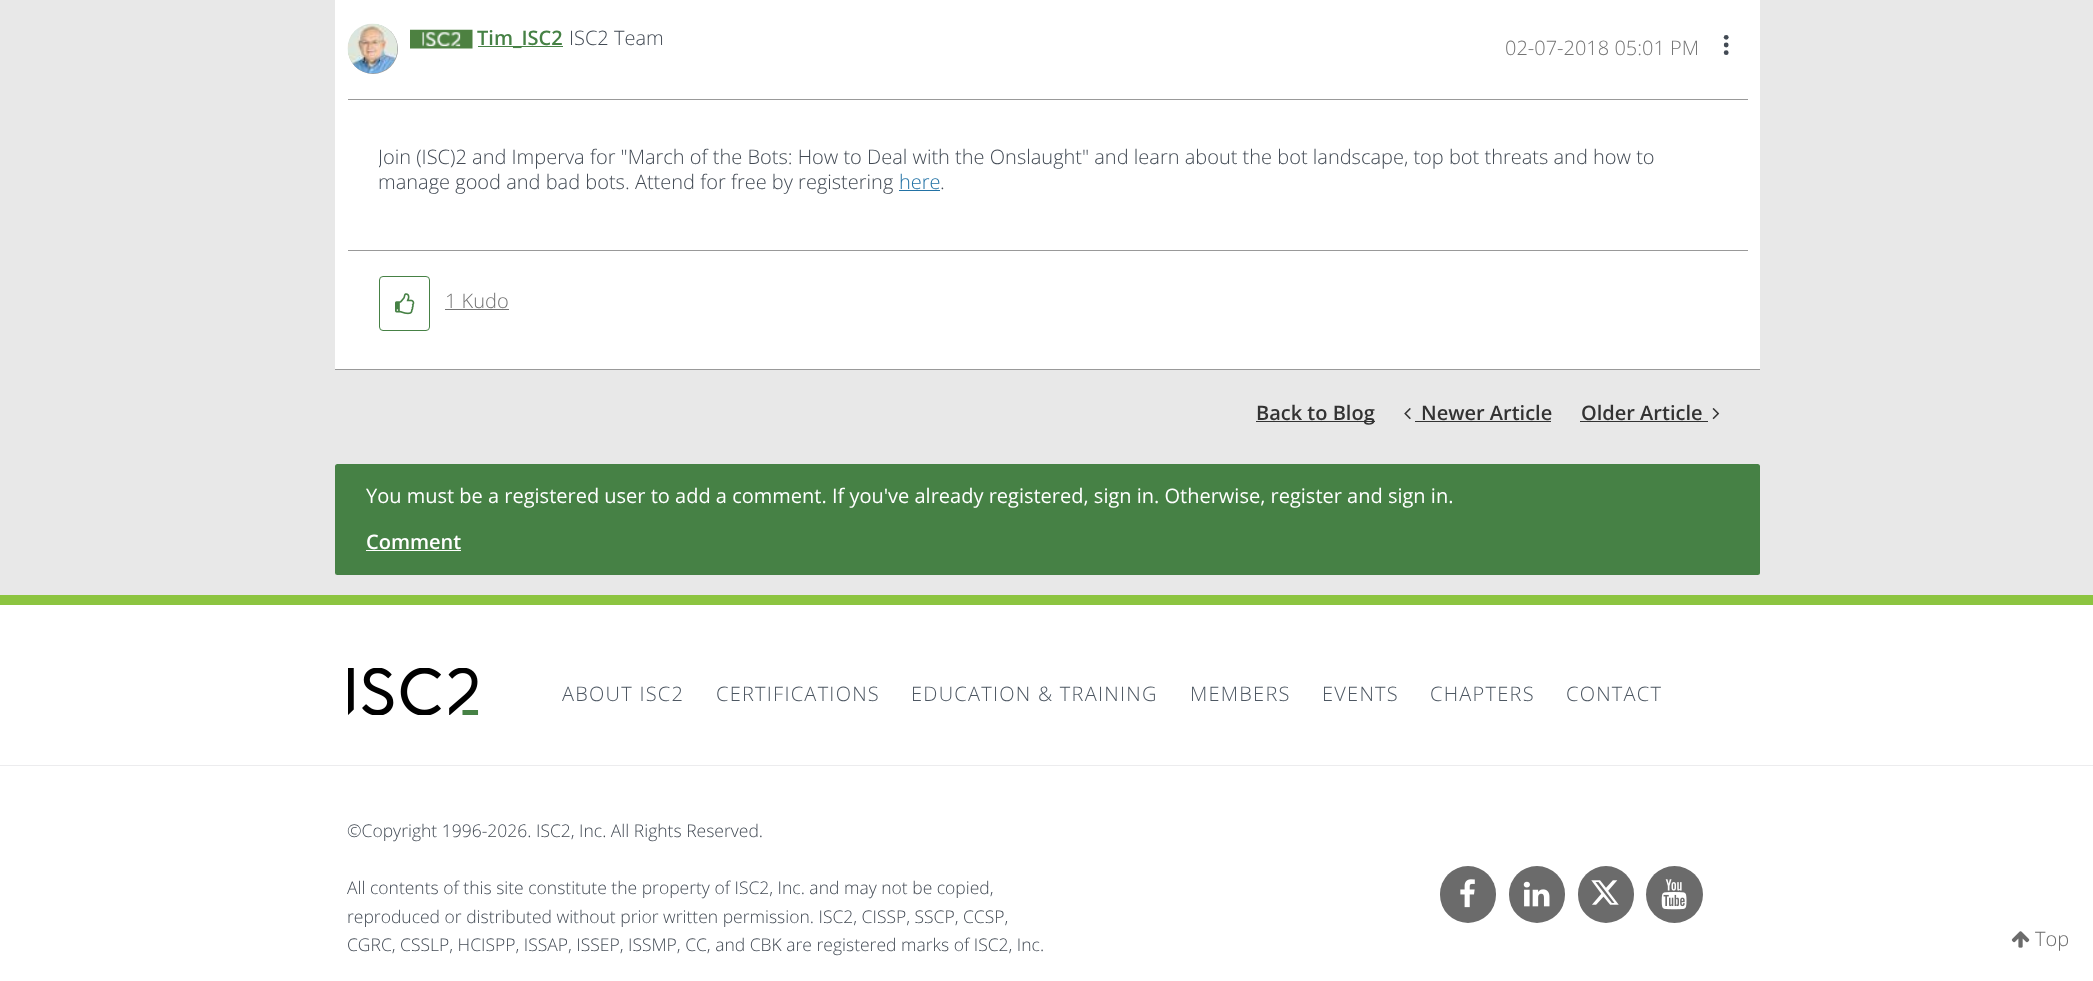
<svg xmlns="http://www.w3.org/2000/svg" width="2093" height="981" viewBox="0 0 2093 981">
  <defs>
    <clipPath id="clip1"><rect x="379" y="144" width="1337" height="62"/></clipPath>
  </defs>
  <rect width="100%" height="100%" fill="rgb(255,255,255)"/>
  <rect x="0" y="0" width="2093" height="595" fill="rgb(232,232,232)"/>
  <rect x="335" y="0" width="1425" height="369" fill="rgb(255,255,255)"/>
  <rect x="335" y="369" width="1425" height="1" fill="rgb(153,153,153)"/>
  <rect x="348" y="99" width="1400" height="1" fill="rgb(153,153,153)"/>
  <rect x="348" y="24" width="50" height="50" rx="25" fill="rgb(153,153,153)" filter="blur(0.5px)"/>
  <image x="347" y="23" width="51" height="51" href="pic1.png"/>
  <image x="410" y="29" width="63" height="20" href="pic2.png"/>
  <rect x="478" y="46" width="85" height="1" fill="rgb(70,129,69)"/>
  <text x="477" y="45" font-family="Open Sans" font-size="20" font-weight="600" fill="rgb(70,129,69)">Tim_ISC2</text>
  <text x="569" y="45" font-family="Open Sans" font-size="20" font-weight="300" fill="rgb(66,74,84)">ISC2 Team</text>
  <text x="1505" y="55" font-family="Open Sans" font-size="20" font-weight="300" fill="rgb(116,116,116)">02-07-2018 05:01 PM</text>
  <circle cx="1726.2" cy="37.3" r="2.4" fill="rgb(66,74,84)"/>
  <circle cx="1726.2" cy="45" r="2.4" fill="rgb(66,74,84)"/>
  <circle cx="1726.2" cy="52.7" r="2.4" fill="rgb(66,74,84)"/>
  <g clip-path="url(#clip1)">
    <text x="378" y="164" font-family="Open Sans" font-size="20" font-weight="300" fill="rgb(66,74,84)">Join (ISC)2 and Imperva for "March of the Bots: How to Deal with the Onslaught" and learn about the bot landscape, top bot threats and how to</text>
  </g>
  <text x="378" y="189" font-family="Open Sans" font-size="20" font-weight="300" fill="rgb(66,74,84)">manage good and bad bots. Attend for free by registering</text>
  <text x="899" y="189" font-family="Open Sans" font-size="20" font-weight="300" fill="rgb(34,114,165)">here</text>
  <rect x="899" y="190" width="41" height="1" fill="rgb(34,114,165)"/>
  <text x="940" y="189" font-family="Open Sans" font-size="20" font-weight="300" fill="rgb(66,74,84)">.</text>
  <rect x="348" y="250" width="1400" height="1" fill="rgb(153,153,153)"/>
  <rect x="379.5" y="276.5" width="50" height="54" rx="3.5" fill="none" stroke="rgb(70,129,69)"/>
  <image x="395" y="293" width="20" height="22" href="pic3.png"/>
  <text x="445" y="308" font-family="Open Sans" font-size="20" font-weight="300" fill="rgb(116,116,116)">1 Kudo</text>
  <rect x="445" y="309" width="64" height="1" fill="rgb(116,116,116)"/>
  <rect x="1256" y="421" width="119" height="1" fill="rgb(51,51,51)"/>
  <text x="1256" y="420" font-family="Open Sans" font-size="20" font-weight="600" fill="rgb(51,51,51)">Back to Blog</text>
  <image x="1404" y="408" width="7" height="12" href="pic4.png"/>
  <text x="1421" y="420" font-family="Open Sans" font-size="20" font-weight="600" fill="rgb(51,51,51)">Newer Article</text>
  <rect x="1415" y="421" width="136" height="1" fill="rgb(51,51,51)"/>
  <text x="1581" y="420" font-family="Open Sans" font-size="20" font-weight="600" fill="rgb(51,51,51)">Older Article</text>
  <rect x="1580" y="421" width="128" height="1" fill="rgb(51,51,51)"/>
  <image x="1712" y="408" width="8" height="12" href="pic5.png"/>
  <rect x="335" y="464" width="1425" height="111" rx="2.5" fill="rgb(70,129,69)"/>
  <text x="366" y="503" font-family="Open Sans" font-size="20" fill="rgb(255,255,255)">You must be a registered user to add a comment. If you've already registered, sign in. Otherwise, register and sign in.</text>
  <text x="366" y="549" font-family="Open Sans" font-size="20" font-weight="600" fill="rgb(255,255,255)">Comment</text>
  <rect x="366" y="550" width="95" height="1" fill="rgb(255,255,255)"/>
  <image x="2011" y="931" width="19" height="17" href="pic6.png"/>
  <text x="2035" y="946" font-family="Open Sans" font-size="20" font-weight="300" fill="rgb(107,107,107)">Top</text>
  <rect x="0" y="595" width="2093" height="10" fill="rgb(140,196,64)"/>
  <image x="348" y="668" width="131" height="47" href="pic7.png"/>
  <g font-family="Open Sans" font-size="20" font-weight="300" letter-spacing="1.25" fill="rgb(77,87,98)">
    <text x="562" y="701">ABOUT ISC2</text>
    <text x="716" y="701">CERTIFICATIONS</text>
    <text x="911" y="701">EDUCATION &amp; TRAINING</text>
    <text x="1190" y="701">MEMBERS</text>
    <text x="1322" y="701">EVENTS</text>
    <text x="1430" y="701">CHAPTERS</text>
    <text x="1566" y="701">CONTACT</text>
  </g>
  <rect x="0" y="765" width="2093" height="1" fill="rgb(236,236,238)"/>
  <g font-family="Open Sans" font-size="17.5" font-weight="300" fill="rgb(66,74,84)">
    <text x="347" y="837">©Copyright 1996-2026. ISC2, Inc. All Rights Reserved.</text>
    <text>
      <tspan x="347" y="894">All contents of this site constitute the property of ISC2, Inc. and may not be copied,</tspan>
      <tspan x="347" y="923">reproduced or distributed without prior written permission. ISC2, CISSP, SSCP, CCSP,</tspan>
      <tspan x="347" y="951">CGRC, CSSLP, HCISPP, ISSAP, ISSEP, ISSMP, CC, and CBK are registered marks of ISC2, Inc.</tspan>
    </text>
  </g>
  <rect x="1440" y="866" width="56" height="57" rx="28" fill="rgb(107,107,107)"/>
  <image x="1460" y="879" width="15" height="29" href="pic8.png"/>
  <rect x="1509" y="866" width="56" height="57" rx="28" fill="rgb(107,107,107)"/>
  <image x="1523" y="881" width="27" height="26" href="pic9.png"/>
  <rect x="1578" y="866" width="56" height="57" rx="28" fill="rgb(107,107,107)"/>
  <image x="1591" y="880" width="28" height="25" href="pic10.png"/>
  <circle cx="1674.5" cy="894.5" r="28.5" fill="rgb(107,107,107)"/>
  <image x="1661" y="879" width="26" height="31" href="pic11.png"/>
</svg>
